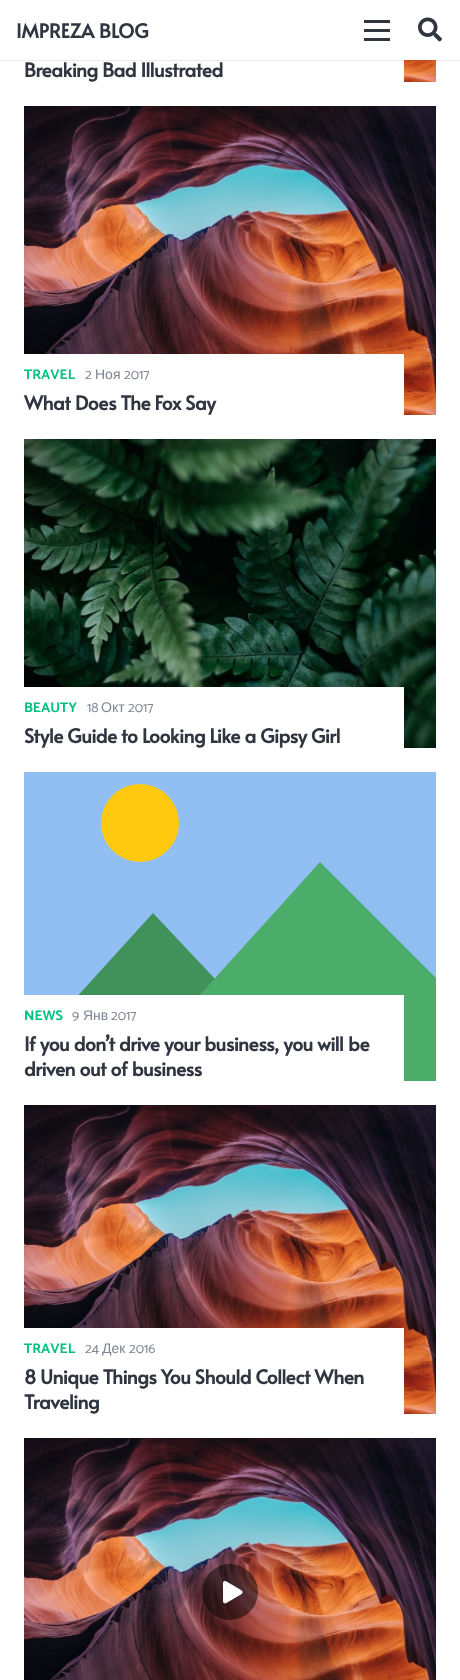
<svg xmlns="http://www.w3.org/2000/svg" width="460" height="1680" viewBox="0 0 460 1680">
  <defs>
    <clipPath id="clip1"><rect x="24" y="772" width="412" height="309"/></clipPath>
  </defs>
  <rect width="100%" height="100%" fill="rgb(255,255,255)"/>
  <image x="404" y="60" width="32" height="22" href="pic2.png"/>
  <rect x="0" y="60" width="460" height="1" fill="rgba(0,0,0,0.08)"/>
  <text x="16" y="38" font-family="Alata" font-size="19.25" font-weight="bold" fill="rgb(48,54,64)">IMPREZA BLOG</text>
  <rect x="364" y="29" width="26" height="3" fill="rgb(48,54,64)"/>
  <rect x="364" y="20" width="26" height="3" fill="rgb(48,54,64)"/>
  <rect x="364" y="38" width="26" height="3" fill="rgb(48,54,64)"/>
  <image x="418" y="17" width="24" height="25" href="pic1.png"/>
  <text x="24" y="77" font-family="Alata" font-size="19.25" font-weight="bold" letter-spacing="-0.4" fill="rgb(48,54,64)">Breaking Bad Illustrated</text>
  <image x="24" y="106" width="412" height="309" href="pic3.png"/>
  <rect x="24" y="354" width="380" height="61" fill="rgb(255,255,255)"/>
  <text x="24" y="379" font-family="Catamaran" font-size="14" font-weight="bold" fill="rgb(0,191,128)">TRAVEL</text>
  <text x="85" y="379" font-family="Catamaran" font-size="14" fill="rgb(124,132,145)">2</text>
  <text x="95" y="379" font-family="Liberation Sans" font-size="14" fill="rgb(124,132,145)">Ноя</text>
  <text x="124" y="379" font-family="Catamaran" font-size="14" fill="rgb(124,132,145)">2017</text>
  <text x="24" y="410" font-family="Alata" font-size="19.25" font-weight="bold" letter-spacing="-0.4" fill="rgb(48,54,64)">What Does The Fox Say</text>
  <image x="24" y="439" width="412" height="309" href="pic4.png"/>
  <rect x="24" y="687" width="380" height="61" fill="rgb(255,255,255)"/>
  <text x="24" y="712" font-family="Catamaran" font-size="14" font-weight="bold" fill="rgb(0,191,128)">BEAUTY</text>
  <text x="87" y="712" font-family="Catamaran" font-size="14" fill="rgb(124,132,145)">18</text>
  <text x="101" y="712" font-family="Liberation Sans" font-size="14" fill="rgb(124,132,145)">Окт</text>
  <text x="128" y="712" font-family="Catamaran" font-size="14" fill="rgb(124,132,145)">2017</text>
  <text x="24" y="743" font-family="Alata" font-size="19.25" font-weight="bold" letter-spacing="-0.4" fill="rgb(48,54,64)">Style Guide to Looking Like a Gipsy Girl</text>
  <rect x="24" y="772" width="412" height="223" fill="rgb(145,191,244)"/>
  <g clip-path="url(#clip1)">
    <path d="M359 1132H24V1055L153 913Z" fill="rgb(64,145,90)"/>
    <path d="M436 978V1132H76L320 862Z" fill="rgb(76,173,107)"/>
  </g>
  <circle cx="140" cy="823" r="39" fill="rgb(255,201,15)"/>
  <rect x="24" y="995" width="380" height="86" fill="rgb(255,255,255)"/>
  <text x="24" y="1020" font-family="Catamaran" font-size="14" font-weight="bold" fill="rgb(0,191,128)">NEWS</text>
  <text x="72" y="1020" font-family="Catamaran" font-size="14" fill="rgb(124,132,145)">9</text>
  <text x="83" y="1020" font-family="Liberation Sans" font-size="14" fill="rgb(124,132,145)">Янв</text>
  <text x="111" y="1020" font-family="Catamaran" font-size="14" fill="rgb(124,132,145)">2017</text>
  <g font-family="Alata" font-size="19.25" font-weight="bold" letter-spacing="-0.4" fill="rgb(48,54,64)">
    <text>
      <tspan x="24" y="1051">If you don’t drive your business, you will be</tspan>
      <tspan x="24" y="1076">driven out of business</tspan>
    </text>
  </g>
  <image x="24" y="1105" width="412" height="309" href="pic3.png"/>
  <rect x="24" y="1328" width="380" height="86" fill="rgb(255,255,255)"/>
  <text x="24" y="1353" font-family="Catamaran" font-size="14" font-weight="bold" fill="rgb(0,191,128)">TRAVEL</text>
  <text x="85" y="1353" font-family="Catamaran" font-size="14" fill="rgb(124,132,145)">24</text>
  <text x="102" y="1353" font-family="Liberation Sans" font-size="14" fill="rgb(124,132,145)">Дек</text>
  <text x="129" y="1353" font-family="Catamaran" font-size="14" fill="rgb(124,132,145)">2016</text>
  <g font-family="Alata" font-size="19.25" font-weight="bold" letter-spacing="-0.4" fill="rgb(48,54,64)">
    <text>
      <tspan x="24" y="1384">8 Unique Things You Should Collect When</tspan>
      <tspan x="24" y="1409">Traveling</tspan>
    </text>
  </g>
  <image x="24" y="1438" width="412" height="242" href="pic5.png"/>
  <circle cx="230" cy="1592" r="28" fill="rgba(0,0,0,0.5)"/>
  <image x="223" y="1581" width="20" height="23" href="pic6.png"/>
</svg>
